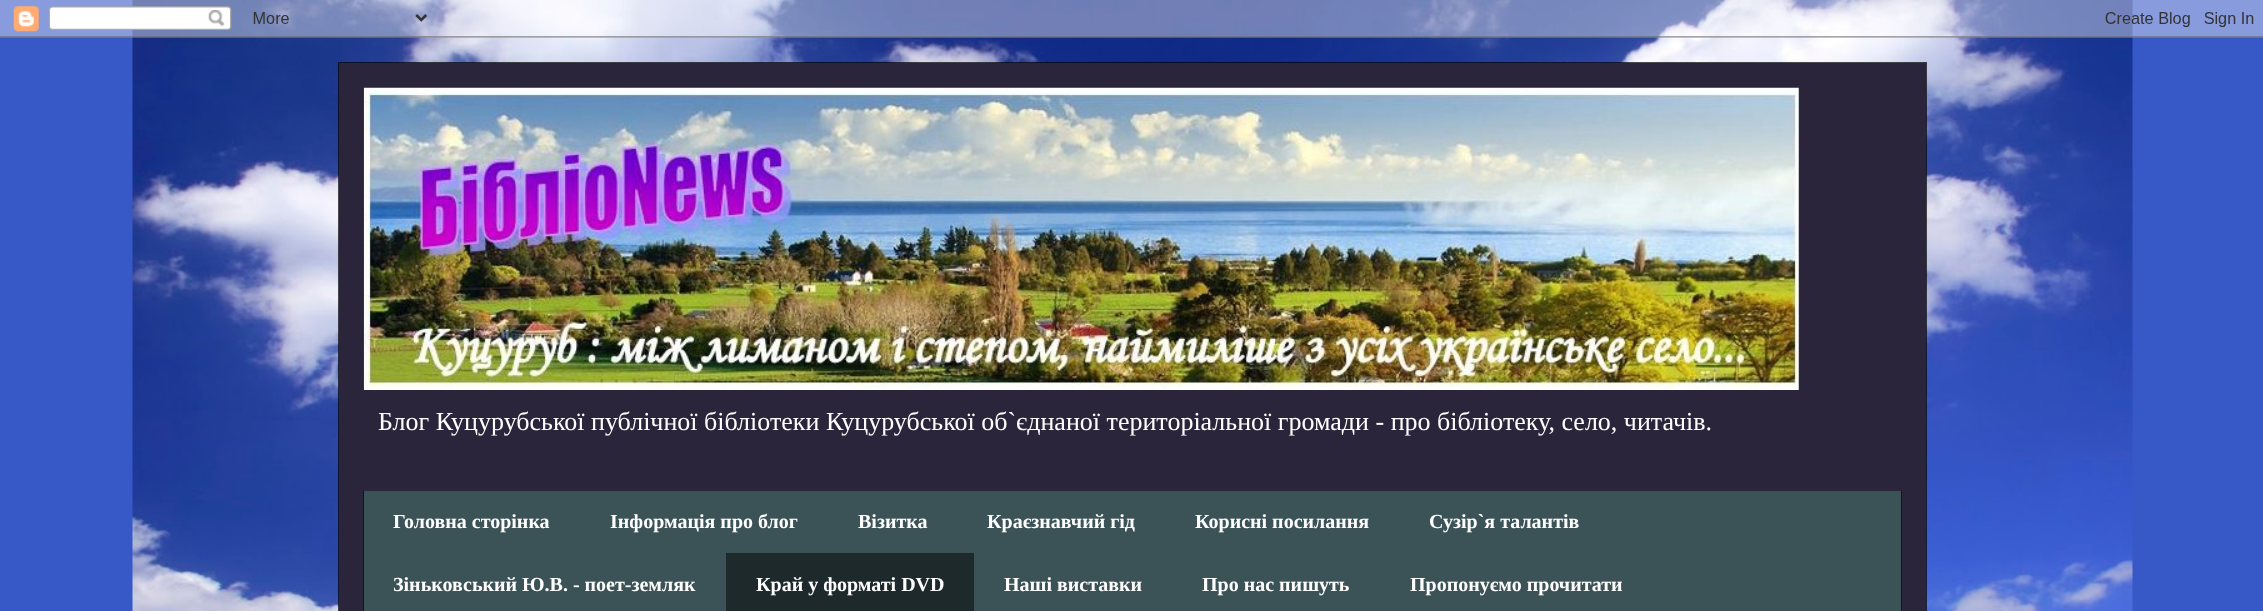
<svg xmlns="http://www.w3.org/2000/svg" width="2263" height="611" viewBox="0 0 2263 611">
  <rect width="100%" height="100%" fill="rgb(55,89,199)"/>
  <image x="132" y="0" width="2001" height="611" href="pic1.png"/>
  <image x="0" y="0" width="2263" height="38" href="pic2.png"/>
  <rect x="339" y="63" width="1587" height="548" fill="rgb(142,124,195)"/>
  <rect x="338" y="62" width="1589" height="549" fill="rgba(0,0,0,0.7)"/>
  <image x="363" y="87" width="1436" height="303" href="pic3.png"/>
  <text x="378" y="430" font-family="Liberation Serif" font-size="26" fill="rgb(255,255,255)">Блог Куцурубської публічної бібліотеки Куцурубської об`єднаної територіальної громади - про бібліотеку, село, читачів.</text>
  <rect x="364" y="491" width="1537" height="120" fill="rgb(118,165,175)"/>
  <rect x="363" y="491" width="1539" height="120" fill="rgba(0,0,0,0.5)"/>
  <g font-family="Liberation Serif" font-size="20" font-weight="bold" fill="rgb(255,255,255)">
    <text x="393" y="528">Головна сторінка</text>
    <text x="610" y="528">Інформація про блог</text>
    <text x="858" y="528">Візитка</text>
    <text x="987" y="528">Краєзнавчий гід</text>
    <text x="1195" y="528">Корисні посилання</text>
    <text x="1429" y="528">Сузір`я талантів</text>
    <text x="393" y="591">Зіньковський Ю.В. - поет-земляк</text>
  </g>
  <rect x="726" y="553" width="248" height="58" fill="rgb(30,41,44)"/>
  <g font-family="Liberation Serif" font-size="20" font-weight="bold" fill="rgb(255,255,255)">
    <text x="756" y="591">Край у форматі DVD</text>
    <text x="1004" y="591">Наші виставки</text>
    <text x="1202" y="591">Про нас пишуть</text>
    <text x="1410" y="591">Пропонуємо прочитати</text>
  </g>
</svg>
